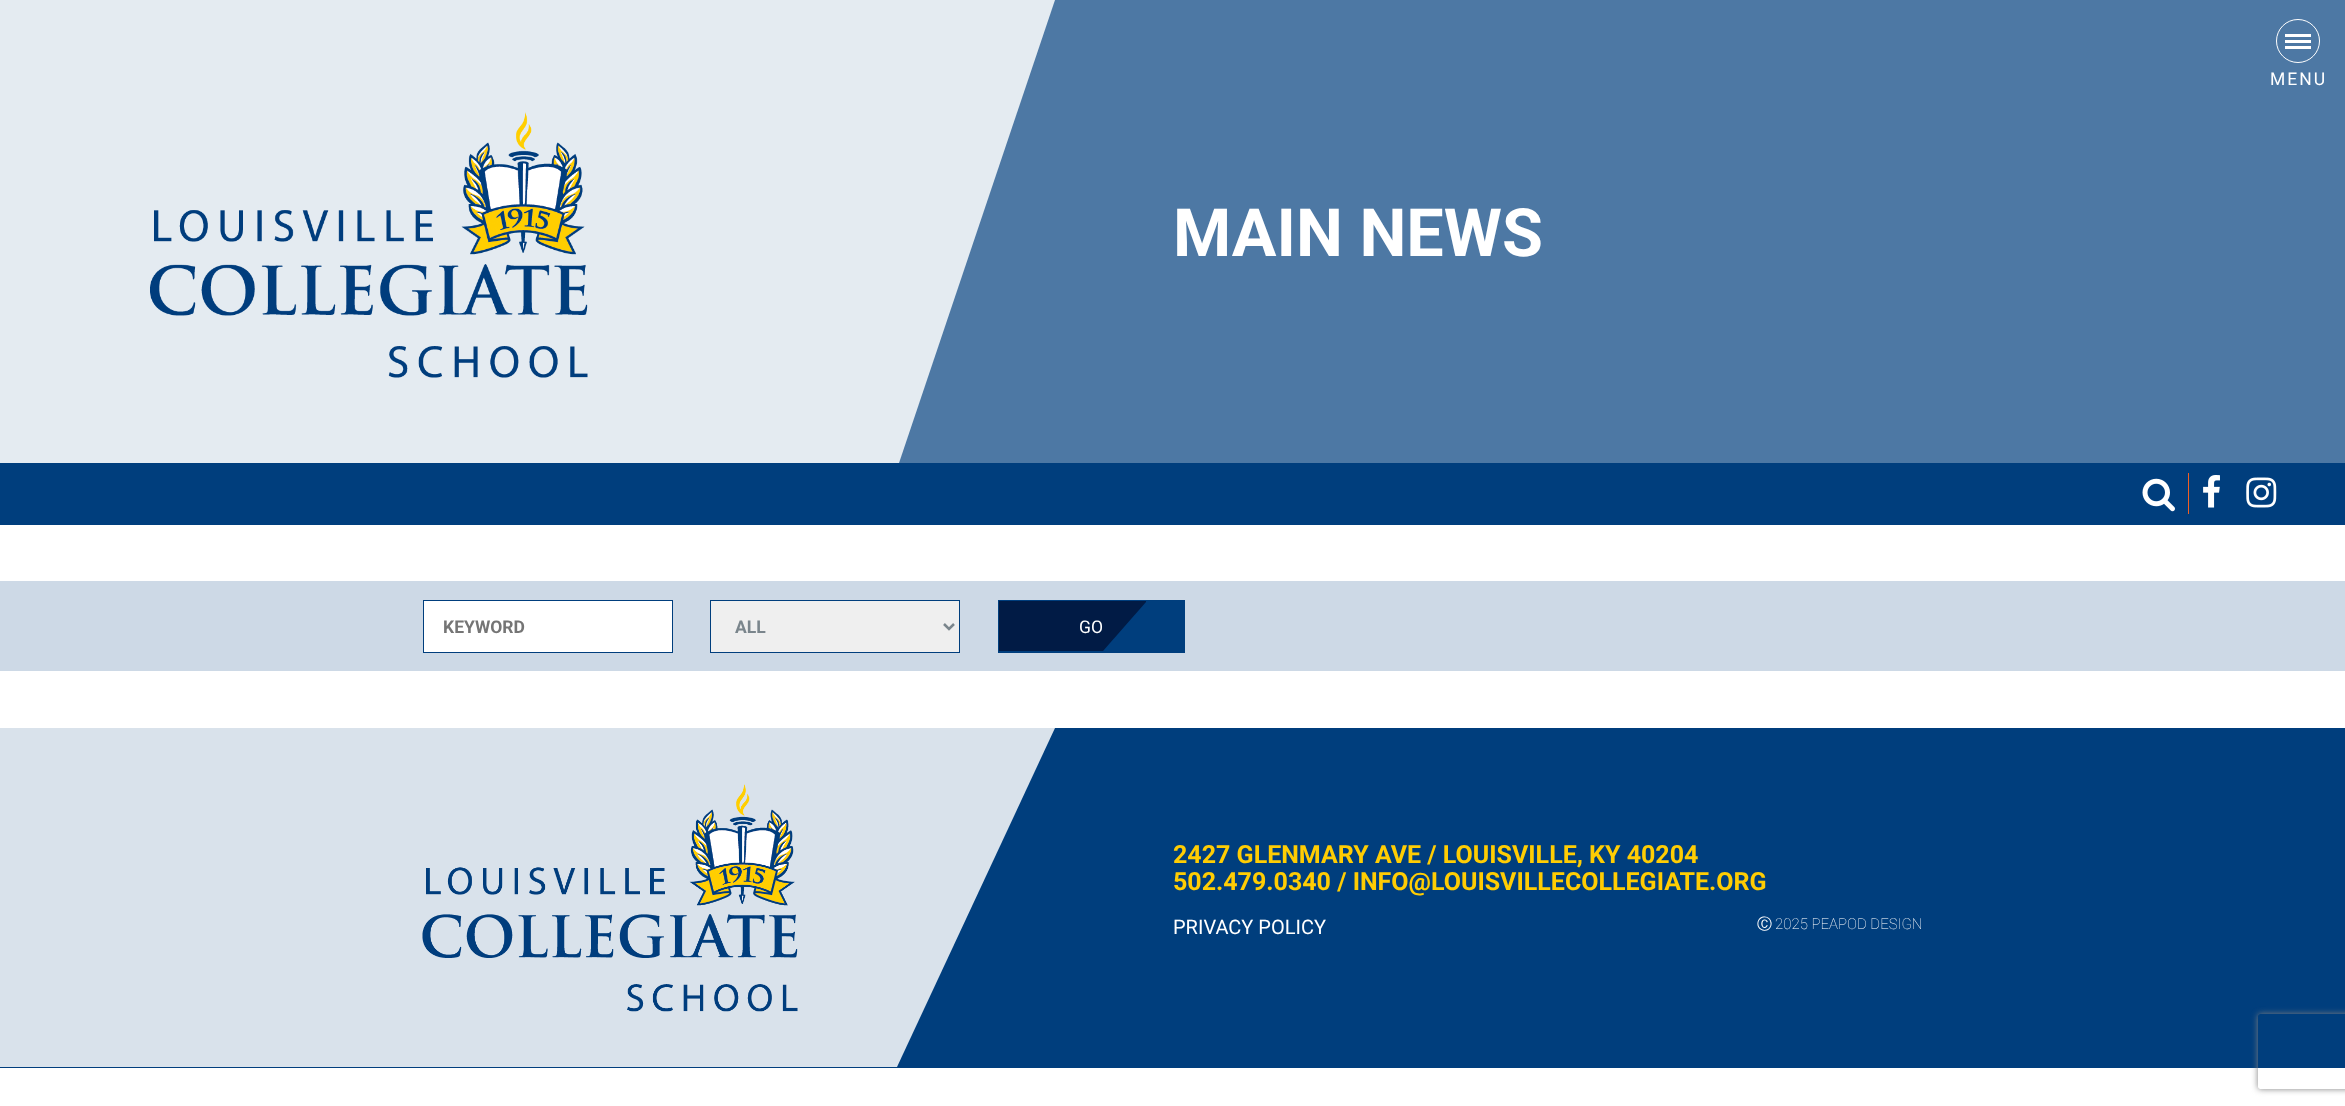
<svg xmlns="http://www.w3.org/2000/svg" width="2345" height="1106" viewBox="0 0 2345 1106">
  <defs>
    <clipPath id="clip1"><path d="M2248 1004H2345V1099H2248ZM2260.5 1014H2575.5C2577 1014 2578 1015 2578 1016.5V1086.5C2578 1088 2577 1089 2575.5 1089H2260.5C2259 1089 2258 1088 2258 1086.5V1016.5C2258 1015 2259 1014 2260.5 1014Z" clip-rule="evenodd"/></clipPath>
  </defs>
  <rect width="100%" height="100%" fill="rgb(255,255,255)"/>
  <rect x="899" y="0" width="1446" height="463" fill="rgb(77,120,164)"/>
  <circle cx="2298" cy="41" r="21.5" fill="none" stroke="rgb(255,255,255)"/>
  <rect x="2285" y="34" width="26" height="3" fill="rgb(255,255,255)"/>
  <rect x="2285" y="40" width="26" height="3" fill="rgb(255,255,255)"/>
  <rect x="2285" y="46" width="26" height="3" fill="rgb(255,255,255)"/>
  <text x="2270" y="85" font-family="Roboto" font-size="17.5" letter-spacing="2" fill="rgb(255,255,255)">MENU</text>
  <path d="M0 0V469H897L1055 0Z" fill="rgb(228,235,241)"/>
  <image x="150" y="112" width="438" height="266" href="pic1.png"/>
  <text x="1173" y="256" font-family="Roboto" font-size="66.5" font-weight="bold" fill="rgb(255,255,255)">MAIN NEWS</text>
  <rect x="0" y="463" width="2345" height="62" fill="rgb(0,62,125)"/>
  <image x="2142" y="478" width="33" height="34" href="pic2.png"/>
  <rect x="2188" y="473" width="1" height="41" fill="rgb(240,95,34)"/>
  <image x="2203" y="475" width="17" height="33" href="pic3.png"/>
  <image x="2246" y="477" width="31" height="31" href="pic4.png"/>
  <rect x="0" y="581" width="2345" height="90" fill="rgb(205,217,230)"/>
  <rect x="423.5" y="600.5" width="249" height="52" fill="rgb(255,255,255)" stroke="rgb(0,62,125)"/>
  <text x="443" y="633" font-family="Roboto" font-size="17.5" font-weight="bold" fill="rgb(117,117,117)">KEYWORD</text>
  <rect x="710.5" y="600.5" width="249" height="52" fill="rgb(239,239,239)" stroke="rgb(0,62,125)"/>
  <path d="M944 624L949 629L954 624" fill="none" stroke="rgb(122,133,140)" stroke-width="2.5"/>
  <text x="735" y="633" font-family="Roboto" font-size="17.5" font-weight="bold" fill="rgb(122,133,140)">ALL</text>
  <rect x="998" y="600" width="187" height="53" fill="rgb(0,62,125)"/>
  <path d="M1103 651H999V601H1146V602Z" fill="rgb(1,27,69)"/>
  <text x="1079" y="633" font-family="Roboto" font-size="17.5" fill="rgb(255,255,255)">GO</text>
  <rect x="0" y="728" width="2345" height="340" fill="rgb(0,62,125)"/>
  <path d="M0 728V1067H897L1055 728Z" fill="rgb(217,226,235)"/>
  <image x="422" y="784" width="376" height="228" href="pic5.png"/>
  <g font-family="Roboto" font-size="25" font-weight="bold" fill="rgb(255,205,3)">
    <text>
      <tspan x="1173" y="863">2427 GLENMARY AVE / LOUISVILLE, KY 40204</tspan>
      <tspan x="1173" y="890">502.479.0340 / INFO@LOUISVILLECOLLEGIATE.ORG</tspan>
    </text>
  </g>
  <text x="1173" y="934" font-family="Roboto" font-size="20" fill="rgb(255,255,255)">PRIVACY POLICY</text>
  <text x="1757" y="929" font-family="WenQuanYi Zen Hei" font-size="15" font-weight="500" fill="rgb(255,255,255)">Ⓒ</text>
  <text x="1775" y="929" font-family="Roboto" font-size="15" font-weight="100" fill="rgb(255,255,255)">2025 PEAPOD DESIGN</text>
  <g clip-path="url(#clip1)">
    <rect x="2258" y="1014" width="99" height="75" rx="2.5" fill="rgb(128,128,128)" filter="blur(3px)"/>
  </g>
</svg>
